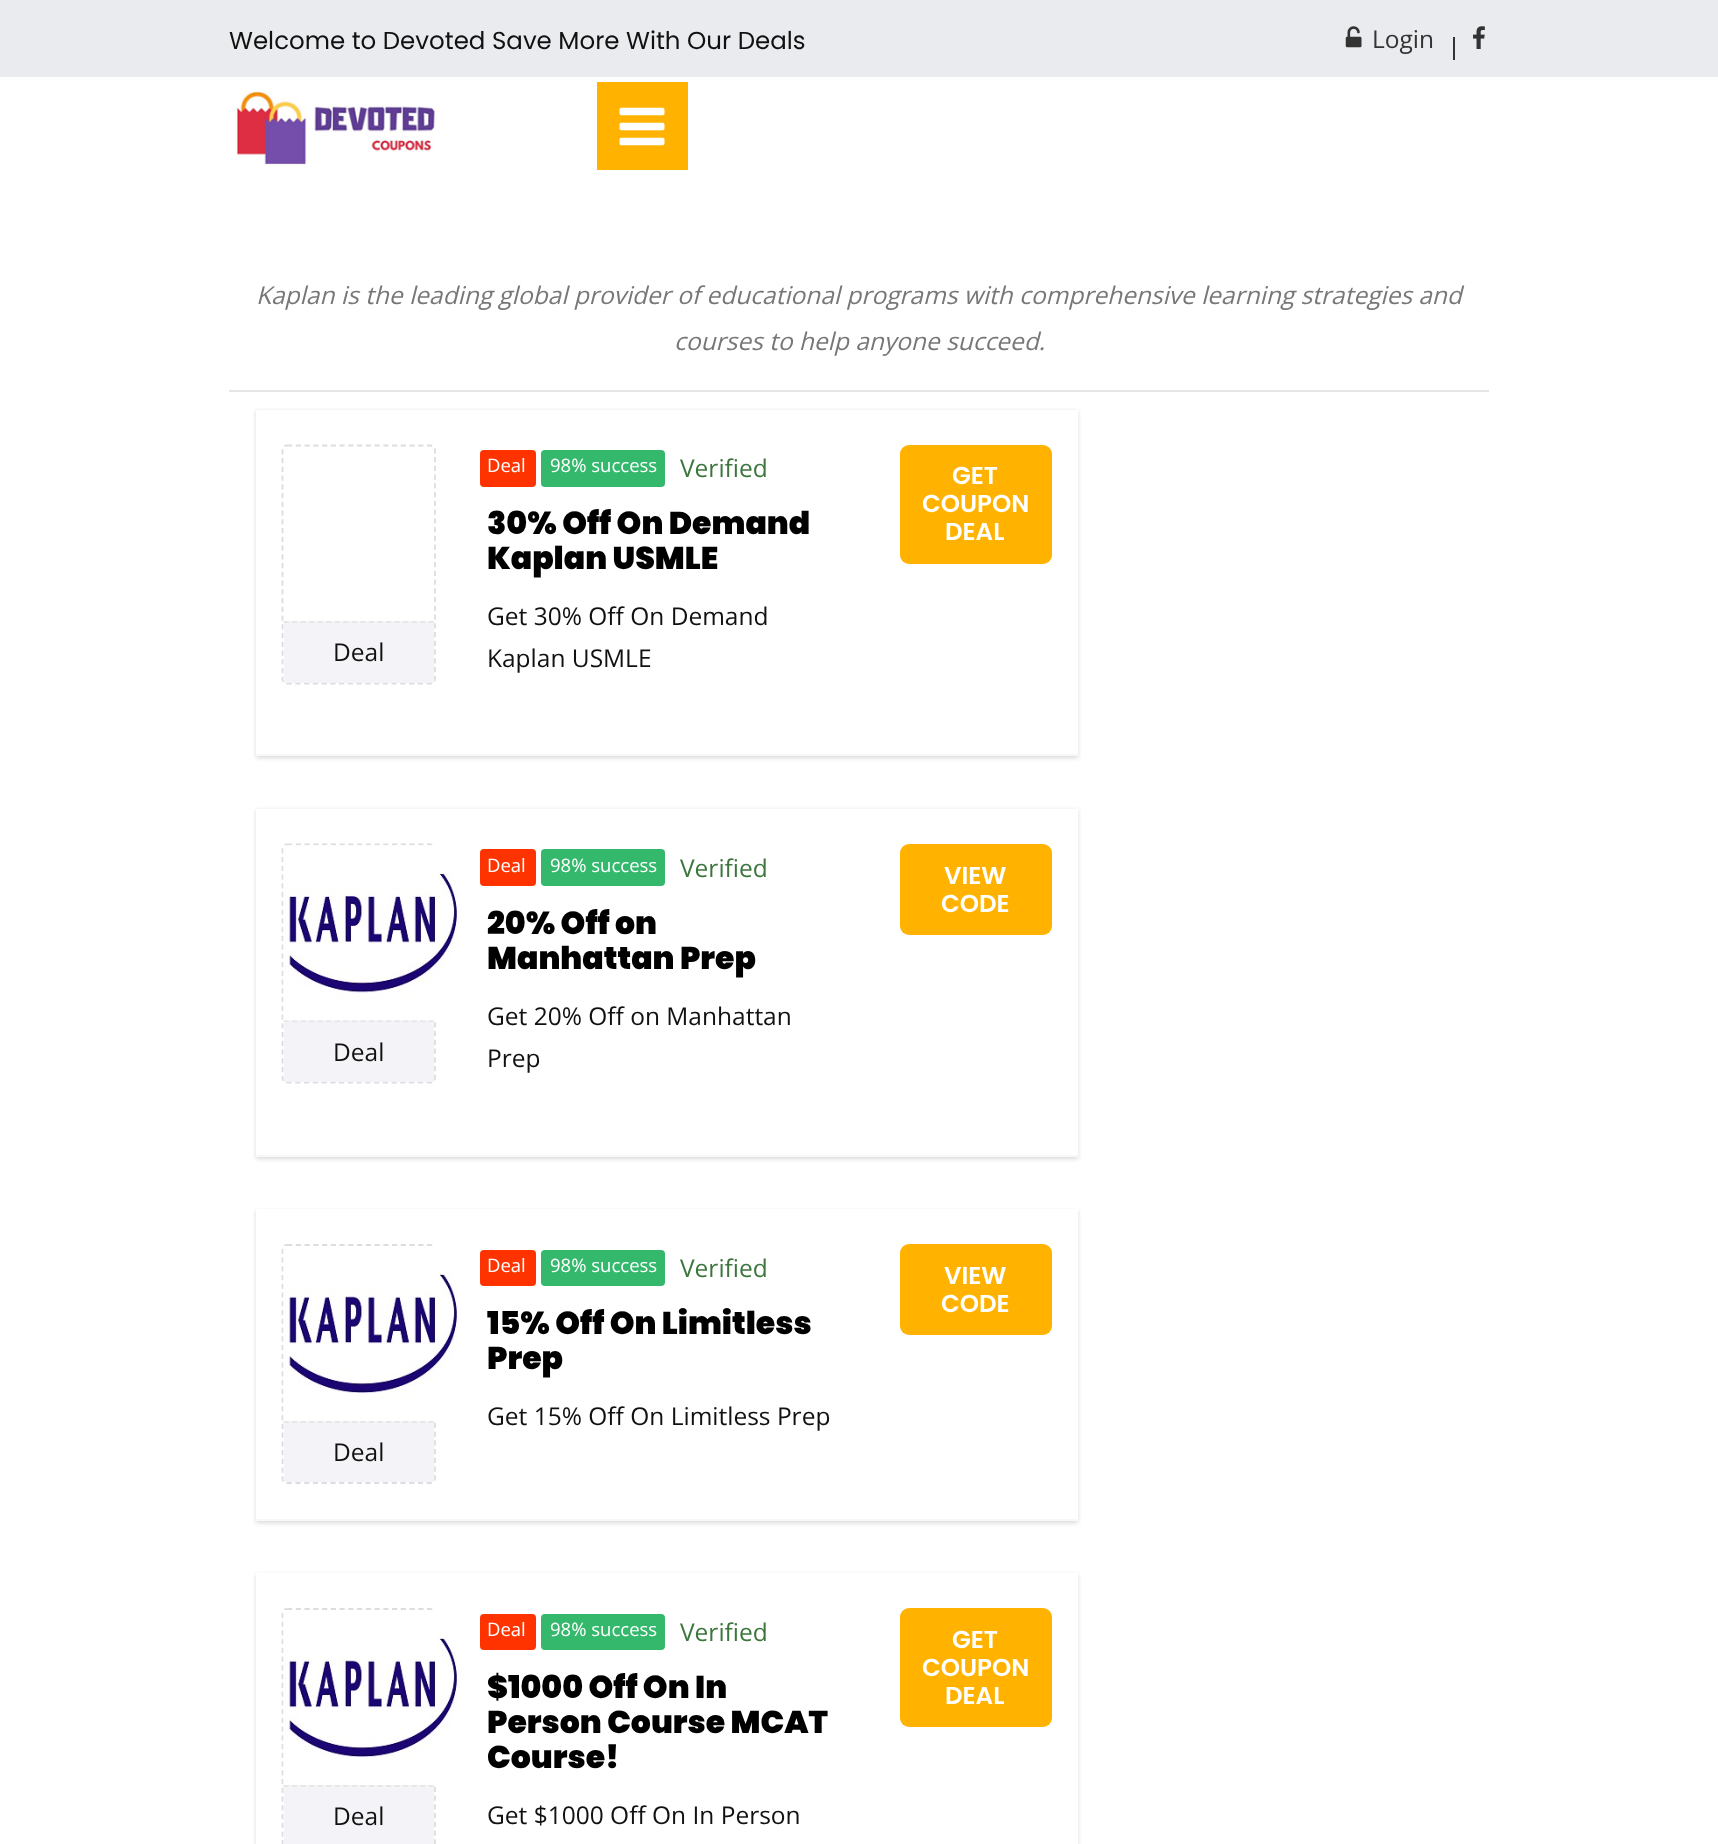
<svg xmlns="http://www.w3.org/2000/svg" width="1718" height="1844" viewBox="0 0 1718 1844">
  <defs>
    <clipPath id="clip1"><path d="M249 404H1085V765H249ZM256 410H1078V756H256Z" clip-rule="evenodd"/></clipPath>
  </defs>
  <rect width="100%" height="100%" fill="rgb(255,255,255)"/>
  <rect x="0" y="0" width="1718" height="77" fill="rgb(234,235,239)"/>
  <text x="229" y="49" font-family="Poppins" font-size="24.5" fill="rgb(17,17,17)">Welcome to Devoted Save More With Our Deals</text>
  <image x="1345" y="26" width="17" height="22" href="pic1.png"/>
  <text x="1372" y="48" font-family="Open Sans" font-size="24.5" fill="rgb(51,51,51)">Login</text>
  <rect x="1453" y="37" width="2" height="23" fill="rgb(51,51,51)"/>
  <image x="1473" y="26" width="12" height="23" href="pic2.png"/>
  <image x="236" y="91" width="199" height="74" href="pic3.png"/>
  <rect x="597" y="82" width="91" height="88" fill="rgb(255,179,0)"/>
  <image x="619" y="107" width="46" height="39" href="pic4.png"/>
  <rect x="229" y="390" width="1260" height="2" fill="rgb(229,229,229)"/>
  <g font-family="Open Sans" font-size="24.5" font-style="italic" fill="rgb(119,119,119)">
    <text x="256" y="304">Kaplan is the leading global provider of educational programs with comprehensive learning strategies and</text>
    <text x="674" y="350">courses to help anyone succeed.</text>
  </g>
  <g clip-path="url(#clip1)">
    <rect x="256" y="411" width="822" height="347" fill="rgb(217,218,219)" filter="blur(2px)"/>
  </g>
  <rect x="256" y="754" width="822" height="2" fill="rgb(248,248,248)"/>
  <rect x="480" y="450" width="56" height="37" rx="4" fill="rgb(255,51,0)"/>
  <text x="487" y="472" font-family="Open Sans" font-size="18.5" fill="rgb(255,255,255)">Deal</text>
  <rect x="541" y="450" width="124" height="37" rx="4" fill="rgb(51,184,108)"/>
  <text x="550" y="472" font-family="Open Sans" font-size="18.5" fill="rgb(255,255,255)">98% success</text>
  <text x="680" y="477" font-family="Open Sans" font-size="24.5" fill="rgb(60,118,61)">Verified</text>
  <g font-family="Poppins" font-size="31.5" font-weight="900" fill="rgb(0,0,0)">
    <text>
      <tspan x="487" y="534">30% Off On Demand</tspan>
      <tspan x="487" y="569">Kaplan USMLE</tspan>
    </text>
  </g>
  <g font-family="Open Sans" font-size="24.5" fill="rgb(17,17,17)">
    <text>
      <tspan x="487" y="625">Get 30% Off On Demand</tspan>
      <tspan x="487" y="667">Kaplan USMLE</tspan>
    </text>
  </g>
  <rect x="900" y="445" width="152" height="119" rx="9" fill="rgb(255,179,0)"/>
  <g font-family="Poppins" font-size="24.5" font-weight="600" fill="rgb(255,255,255)">
    <text x="952" y="484">GET</text>
    <text x="922" y="512">COUPON</text>
    <text x="945" y="540">DEAL</text>
  </g>
  <path d="M287 445.5H430.5C433 445.5 435 447.5 435 450V679C435 681.5 433 683.5 430.5 683.5H287C284.5 683.5 282.5 681.5 282.5 679V450C282.5 447.5 284.5 445.5 287 445.5Z" fill="none" stroke="rgb(221,221,221)" stroke-width="1.8" stroke-dasharray="5.25 3.5"/>
  <rect x="284" y="621" width="150" height="62" fill="rgba(242,242,247,0.86)"/>
  <path d="M283.5 622H434" fill="none" stroke="rgb(231,231,231)" stroke-width="1.8" stroke-dasharray="5.25 3.29"/>
  <text x="333" y="661" font-family="Open Sans" font-size="24.5" fill="rgb(17,17,17)">Deal</text>
  <rect x="256" y="810" width="822" height="349" fill="rgb(217,218,219)" filter="blur(2px)"/>
  <rect x="256" y="809" width="822" height="346" fill="rgb(255,255,255)"/>
  <rect x="256" y="1155" width="822" height="2" fill="rgb(248,248,248)"/>
  <rect x="480" y="849" width="56" height="37" rx="4" fill="rgb(255,51,0)"/>
  <text x="487" y="872" font-family="Open Sans" font-size="18.5" fill="rgb(255,255,255)">Deal</text>
  <rect x="541" y="849" width="124" height="37" rx="4" fill="rgb(51,184,108)"/>
  <text x="550" y="872" font-family="Open Sans" font-size="18.5" fill="rgb(255,255,255)">98% success</text>
  <text x="680" y="877" font-family="Open Sans" font-size="24.5" fill="rgb(60,118,61)">Verified</text>
  <g font-family="Poppins" font-size="31.5" font-weight="900" fill="rgb(0,0,0)">
    <text>
      <tspan x="487" y="934">20% Off on</tspan>
      <tspan x="487" y="969">Manhattan Prep</tspan>
    </text>
  </g>
  <g font-family="Open Sans" font-size="24.5" fill="rgb(17,17,17)">
    <text>
      <tspan x="487" y="1025">Get 20% Off on Manhattan</tspan>
      <tspan x="487" y="1067">Prep</tspan>
    </text>
  </g>
  <rect x="900" y="844" width="152" height="91" rx="9" fill="rgb(255,179,0)"/>
  <g font-family="Poppins" font-size="24.5" font-weight="600" fill="rgb(255,255,255)">
    <text x="944" y="884">VIEW</text>
    <text x="941" y="912">CODE</text>
  </g>
  <path d="M287 844.5H430.5C433 844.5 435 846.5 435 849V1078C435 1080.5 433 1082.5 430.5 1082.5H287C284.5 1082.5 282.5 1080.5 282.5 1078V849C282.5 846.5 284.5 844.5 287 844.5Z" fill="none" stroke="rgb(221,221,221)" stroke-width="1.8" stroke-dasharray="5.25 3.5"/>
  <rect x="284" y="1020" width="150" height="62" fill="rgba(242,242,247,0.86)"/>
  <path d="M283.5 1021H434" fill="none" stroke="rgb(231,231,231)" stroke-width="1.8" stroke-dasharray="5.25 3.29"/>
  <image x="283" y="845" width="175" height="176" href="pic5.png"/>
  <text x="333" y="1061" font-family="Open Sans" font-size="24.5" fill="rgb(17,17,17)">Deal</text>
  <rect x="256" y="1211" width="822" height="312" fill="rgb(217,218,219)" filter="blur(2px)"/>
  <rect x="256" y="1209" width="822" height="310" fill="rgb(255,255,255)"/>
  <rect x="256" y="1519" width="822" height="2" fill="rgb(248,248,248)"/>
  <rect x="480" y="1250" width="56" height="36" rx="4" fill="rgb(255,51,0)"/>
  <text x="487" y="1272" font-family="Open Sans" font-size="18.5" fill="rgb(255,255,255)">Deal</text>
  <rect x="541" y="1250" width="124" height="36" rx="4" fill="rgb(51,184,108)"/>
  <text x="550" y="1272" font-family="Open Sans" font-size="18.5" fill="rgb(255,255,255)">98% success</text>
  <text x="680" y="1277" font-family="Open Sans" font-size="24.5" fill="rgb(60,118,61)">Verified</text>
  <g font-family="Poppins" font-size="31.5" font-weight="900" fill="rgb(0,0,0)">
    <text>
      <tspan x="487" y="1334">15% Off On Limitless</tspan>
      <tspan x="487" y="1369">Prep</tspan>
    </text>
  </g>
  <text x="487" y="1425" font-family="Open Sans" font-size="24.5" fill="rgb(17,17,17)">Get 15% Off On Limitless Prep</text>
  <rect x="900" y="1244" width="152" height="91" rx="9" fill="rgb(255,179,0)"/>
  <g font-family="Poppins" font-size="24.5" font-weight="600" fill="rgb(255,255,255)">
    <text x="944" y="1284">VIEW</text>
    <text x="941" y="1312">CODE</text>
  </g>
  <path d="M287 1245H430.5C433 1245 435 1247 435 1249.5V1479C435 1481 433 1483 430.5 1483H287C284.5 1483 282.5 1481 282.5 1479V1249.5C282.5 1247 284.5 1245 287 1245Z" fill="none" stroke="rgb(221,221,221)" stroke-width="1.8" stroke-dasharray="5.25 3.5"/>
  <image x="283" y="1246" width="175" height="175" href="pic6.png"/>
  <rect x="284" y="1421" width="150" height="61" fill="rgba(242,242,247,0.86)"/>
  <path d="M283.5 1422H434" fill="none" stroke="rgb(231,231,231)" stroke-width="1.8" stroke-dasharray="5.25 3.29"/>
  <text x="333" y="1461" font-family="Open Sans" font-size="24.5" fill="rgb(17,17,17)">Deal</text>
  <rect x="256" y="1575" width="822" height="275" fill="rgb(217,218,219)" filter="blur(2px)"/>
  <rect x="256" y="1573" width="822" height="271" fill="rgb(255,255,255)"/>
  <rect x="480" y="1614" width="56" height="36" rx="4" fill="rgb(255,51,0)"/>
  <text x="487" y="1636" font-family="Open Sans" font-size="18.5" fill="rgb(255,255,255)">Deal</text>
  <rect x="541" y="1614" width="124" height="36" rx="4" fill="rgb(51,184,108)"/>
  <text x="550" y="1636" font-family="Open Sans" font-size="18.5" fill="rgb(255,255,255)">98% success</text>
  <text x="680" y="1641" font-family="Open Sans" font-size="24.5" fill="rgb(60,118,61)">Verified</text>
  <g font-family="Poppins" font-size="31.5" font-weight="900" fill="rgb(0,0,0)">
    <text>
      <tspan x="487" y="1698">$1000 Off On In</tspan>
      <tspan x="487" y="1733">Person Course MCAT</tspan>
      <tspan x="487" y="1768">Course!</tspan>
    </text>
  </g>
  <text x="487" y="1824" font-family="Open Sans" font-size="24.5" fill="rgb(17,17,17)">Get $1000 Off On In Person</text>
  <rect x="900" y="1608" width="152" height="119" rx="9" fill="rgb(255,179,0)"/>
  <g font-family="Poppins" font-size="24.5" font-weight="600" fill="rgb(255,255,255)">
    <text x="952" y="1648">GET</text>
    <text x="922" y="1676">COUPON</text>
    <text x="945" y="1704">DEAL</text>
  </g>
  <path d="M287 1609H430.5C433 1609 435 1611 435 1613.5V1843C435 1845 433 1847 430.5 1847H287C284.5 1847 282.5 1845 282.5 1843V1613.5C282.5 1611 284.5 1609 287 1609Z" fill="none" stroke="rgb(221,221,221)" stroke-width="1.8" stroke-dasharray="5.25 3.5"/>
  <image x="283" y="1610" width="175" height="175" href="pic6.png"/>
  <rect x="284" y="1785" width="150" height="59" fill="rgb(244,244,248)"/>
  <path d="M283.5 1786H434" fill="none" stroke="rgb(231,231,231)" stroke-width="1.8" stroke-dasharray="5.25 3.29"/>
  <text x="333" y="1825" font-family="Open Sans" font-size="24.5" fill="rgb(17,17,17)">Deal</text>
</svg>
